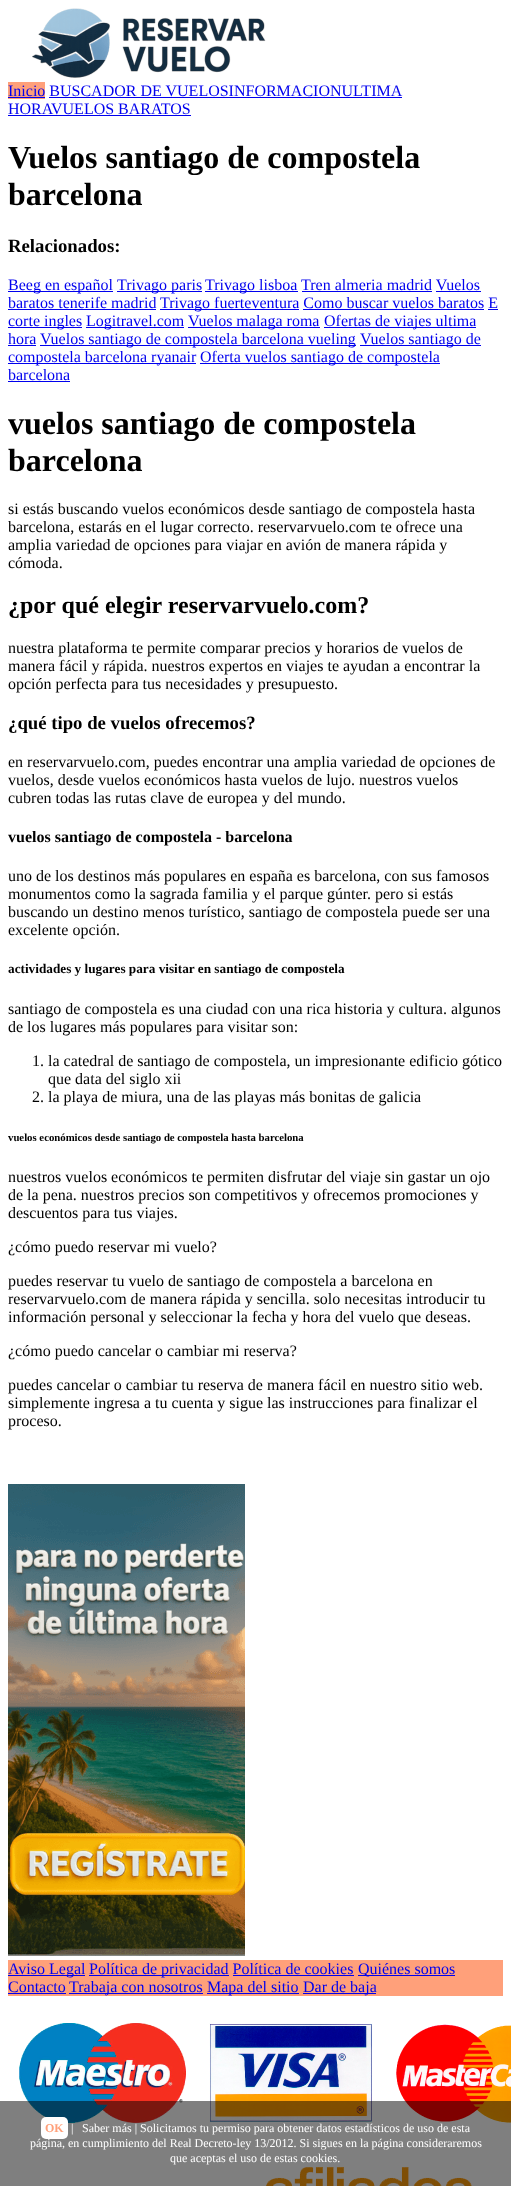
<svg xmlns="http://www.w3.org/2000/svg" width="511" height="2186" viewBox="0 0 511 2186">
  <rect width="100%" height="100%" fill="rgb(255,255,255)"/>
  <image x="32" y="8" width="234" height="70" href="pic1.png"/>
  <rect x="8" y="82" width="37" height="17" fill="rgb(255,160,122)"/>
  <text x="8" y="96" font-family="Liberation Serif" font-size="16" fill="rgb(0,0,238)">Inicio BUSCADOR DE VUELOSINFORMACIONULTIMA</text>
  <rect x="8" y="97" width="37" height="1" fill="rgb(0,0,238)"/>
  <rect x="49" y="97" width="353" height="1" fill="rgb(0,0,238)"/>
  <text x="8" y="114" font-family="Liberation Serif" font-size="16" fill="rgb(0,0,238)">HORA</text>
  <rect x="8" y="115" width="183" height="1" fill="rgb(0,0,238)"/>
  <text x="51" y="114" font-family="Liberation Serif" font-size="16" fill="rgb(0,0,238)">VUELOS BARATOS</text>
  <g font-family="Liberation Serif" font-size="32" font-weight="bold" fill="rgb(0,0,0)">
    <text>
      <tspan x="8" y="168">Vuelos santiago de compostela</tspan>
      <tspan x="8" y="205">barcelona</tspan>
    </text>
  </g>
  <text x="8" y="252" font-family="Liberation Serif" font-size="18.75" font-weight="bold" fill="rgb(0,0,0)">Relacionados:</text>
  <rect x="8" y="291" width="105" height="1" fill="rgb(0,0,238)"/>
  <text x="8" y="290" font-family="Liberation Serif" font-size="16" fill="rgb(0,0,238)">Beeg en español</text>
  <rect x="117" y="291" width="85" height="1" fill="rgb(0,0,238)"/>
  <text x="117" y="290" font-family="Liberation Serif" font-size="16" fill="rgb(0,0,238)">Trivago paris</text>
  <rect x="205" y="291" width="93" height="1" fill="rgb(0,0,238)"/>
  <text x="205" y="290" font-family="Liberation Serif" font-size="16" fill="rgb(0,0,238)">Trivago lisboa Tren almeria madrid Vuelos</text>
  <rect x="302" y="291" width="130" height="1" fill="rgb(0,0,238)"/>
  <text x="8" y="308" font-family="Liberation Serif" font-size="16" fill="rgb(0,0,238)">baratos tenerife madrid</text>
  <rect x="436" y="291" width="45" height="1" fill="rgb(0,0,238)"/>
  <rect x="8" y="309" width="148" height="1" fill="rgb(0,0,238)"/>
  <rect x="160" y="309" width="139" height="1" fill="rgb(0,0,238)"/>
  <text x="160" y="308" font-family="Liberation Serif" font-size="16" fill="rgb(0,0,238)">Trivago fuerteventura Como buscar vuelos baratos E</text>
  <rect x="303" y="309" width="181" height="1" fill="rgb(0,0,238)"/>
  <rect x="8" y="327" width="74" height="1" fill="rgb(0,0,238)"/>
  <text x="8" y="326" font-family="Liberation Serif" font-size="16" fill="rgb(0,0,238)">corte ingles</text>
  <rect x="488" y="309" width="10" height="1" fill="rgb(0,0,238)"/>
  <rect x="86" y="327" width="98" height="1" fill="rgb(0,0,238)"/>
  <text x="86" y="326" font-family="Liberation Serif" font-size="16" fill="rgb(0,0,238)">Logitravel.com</text>
  <rect x="188" y="327" width="132" height="1" fill="rgb(0,0,238)"/>
  <text x="188" y="326" font-family="Liberation Serif" font-size="16" fill="rgb(0,0,238)">Vuelos malaga roma</text>
  <rect x="324" y="327" width="152" height="1" fill="rgb(0,0,238)"/>
  <g font-family="Liberation Serif" font-size="16" fill="rgb(0,0,238)">
    <text x="324" y="326">Ofertas de viajes ultima</text>
    <text x="8" y="344">hora</text>
  </g>
  <rect x="8" y="345" width="28" height="1" fill="rgb(0,0,238)"/>
  <rect x="40" y="345" width="316" height="1" fill="rgb(0,0,238)"/>
  <text x="40" y="344" font-family="Liberation Serif" font-size="16" fill="rgb(0,0,238)">Vuelos santiago de compostela barcelona vueling</text>
  <rect x="360" y="345" width="121" height="1" fill="rgb(0,0,238)"/>
  <text x="360" y="344" font-family="Liberation Serif" font-size="16" fill="rgb(0,0,238)">Vuelos santiago de</text>
  <rect x="8" y="363" width="188" height="1" fill="rgb(0,0,238)"/>
  <text x="8" y="362" font-family="Liberation Serif" font-size="16" fill="rgb(0,0,238)">compostela barcelona ryanair</text>
  <rect x="200" y="363" width="240" height="1" fill="rgb(0,0,238)"/>
  <g font-family="Liberation Serif" font-size="16" fill="rgb(0,0,238)">
    <text x="200" y="362">Oferta vuelos santiago de compostela</text>
    <text x="8" y="380">barcelona</text>
  </g>
  <rect x="8" y="381" width="62" height="1" fill="rgb(0,0,238)"/>
  <g font-family="Liberation Serif" font-size="32" font-weight="bold" fill="rgb(0,0,0)">
    <text>
      <tspan x="8" y="434">vuelos santiago de compostela</tspan>
      <tspan x="8" y="471">barcelona</tspan>
    </text>
  </g>
  <g font-family="Liberation Serif" font-size="16" fill="rgb(0,0,0)">
    <text>
      <tspan x="8" y="514">si estás buscando vuelos económicos desde santiago de compostela hasta</tspan>
      <tspan x="8" y="532">barcelona, estarás en el lugar correcto. reservarvuelo.com te ofrece una</tspan>
      <tspan x="8" y="550">amplia variedad de opciones para viajar en avión de manera rápida y</tspan>
      <tspan x="8" y="568">cómoda.</tspan>
    </text>
  </g>
  <text x="8" y="613" font-family="Liberation Serif" font-size="24" font-weight="bold" fill="rgb(0,0,0)">¿por qué elegir reservarvuelo.com?</text>
  <g font-family="Liberation Serif" font-size="16" fill="rgb(0,0,0)">
    <text>
      <tspan x="8" y="653">nuestra plataforma te permite comparar precios y horarios de vuelos de</tspan>
      <tspan x="8" y="671">manera fácil y rápida. nuestros expertos en viajes te ayudan a encontrar la</tspan>
      <tspan x="8" y="689">opción perfecta para tus necesidades y presupuesto.</tspan>
    </text>
  </g>
  <text x="8" y="729" font-family="Liberation Serif" font-size="18.75" font-weight="bold" fill="rgb(0,0,0)">¿qué tipo de vuelos ofrecemos?</text>
  <g font-family="Liberation Serif" font-size="16" fill="rgb(0,0,0)">
    <text>
      <tspan x="8" y="767">en reservarvuelo.com, puedes encontrar una amplia variedad de opciones de</tspan>
      <tspan x="8" y="785">vuelos, desde vuelos económicos hasta vuelos de lujo. nuestros vuelos</tspan>
      <tspan x="8" y="803">cubren todas las rutas clave de europea y del mundo.</tspan>
    </text>
  </g>
  <text x="8" y="842" font-family="Liberation Serif" font-size="16" font-weight="bold" fill="rgb(0,0,0)">vuelos santiago de compostela - barcelona</text>
  <g font-family="Liberation Serif" font-size="16" fill="rgb(0,0,0)">
    <text>
      <tspan x="8" y="881">uno de los destinos más populares en españa es barcelona, con sus famosos</tspan>
      <tspan x="8" y="899">monumentos como la sagrada familia y el parque gúnter. pero si estás</tspan>
      <tspan x="8" y="917">buscando un destino menos turístico, santiago de compostela puede ser una</tspan>
      <tspan x="8" y="935">excelente opción.</tspan>
    </text>
  </g>
  <text x="8" y="973" font-family="Liberation Serif" font-size="13.25" font-weight="bold" fill="rgb(0,0,0)">actividades y lugares para visitar en santiago de compostela</text>
  <g font-family="Liberation Serif" font-size="16" fill="rgb(0,0,0)">
    <text>
      <tspan x="8" y="1014">santiago de compostela es una ciudad con una rica historia y cultura. algunos</tspan>
      <tspan x="8" y="1032">de los lugares más populares para visitar son:</tspan>
    </text>
    <text x="32" y="1066">1. la catedral de santiago de compostela, un impresionante edificio gótico</text>
    <text x="48" y="1084">que data del siglo xii</text>
    <text x="32" y="1102">2. la playa de miura, una de las playas más bonitas de galicia</text>
  </g>
  <text x="8" y="1141" font-family="Liberation Serif" font-size="10.75" font-weight="bold" fill="rgb(0,0,0)">vuelos económicos desde santiago de compostela hasta barcelona</text>
  <g font-family="Liberation Serif" font-size="16" fill="rgb(0,0,0)">
    <text>
      <tspan x="8" y="1182">nuestros vuelos económicos te permiten disfrutar del viaje sin gastar un ojo</tspan>
      <tspan x="8" y="1200">de la pena. nuestros precios son competitivos y ofrecemos promociones y</tspan>
      <tspan x="8" y="1218">descuentos para tus viajes.</tspan>
    </text>
    <text x="8" y="1252">¿cómo puedo reservar mi vuelo?</text>
    <text>
      <tspan x="8" y="1286">puedes reservar tu vuelo de santiago de compostela a barcelona en</tspan>
      <tspan x="8" y="1304">reservarvuelo.com de manera rápida y sencilla. solo necesitas introducir tu</tspan>
      <tspan x="8" y="1322">información personal y seleccionar la fecha y hora del vuelo que deseas.</tspan>
    </text>
    <text x="8" y="1356">¿cómo puedo cancelar o cambiar mi reserva?</text>
    <text>
      <tspan x="8" y="1390">puedes cancelar o cambiar tu reserva de manera fácil en nuestro sitio web.</tspan>
      <tspan x="8" y="1408">simplemente ingresa a tu cuenta y sigue las instrucciones para finalizar el</tspan>
      <tspan x="8" y="1426">proceso.</tspan>
    </text>
  </g>
  <image x="8" y="1484" width="237" height="472" href="pic2.png"/>
  <rect x="8" y="1960" width="495" height="36" fill="rgb(255,160,122)"/>
  <rect x="8" y="1975" width="77" height="1" fill="rgb(0,0,238)"/>
  <text x="8" y="1974" font-family="Liberation Serif" font-size="16" fill="rgb(0,0,238)">Aviso Legal</text>
  <rect x="89" y="1975" width="140" height="1" fill="rgb(0,0,238)"/>
  <text x="89" y="1974" font-family="Liberation Serif" font-size="16" fill="rgb(0,0,238)">Política de privacidad Política de cookies</text>
  <rect x="358" y="1975" width="97" height="1" fill="rgb(0,0,238)"/>
  <text x="358" y="1974" font-family="Liberation Serif" font-size="16" fill="rgb(0,0,238)">Quiénes somos</text>
  <rect x="233" y="1975" width="121" height="1" fill="rgb(0,0,238)"/>
  <text x="8" y="1992" font-family="Liberation Serif" font-size="16" fill="rgb(0,0,238)">Contacto</text>
  <rect x="8" y="1993" width="58" height="1" fill="rgb(0,0,238)"/>
  <rect x="69" y="1993" width="134" height="1" fill="rgb(0,0,238)"/>
  <text x="69" y="1992" font-family="Liberation Serif" font-size="16" fill="rgb(0,0,238)">Trabaja con nosotros</text>
  <rect x="207" y="1993" width="92" height="1" fill="rgb(0,0,238)"/>
  <text x="207" y="1992" font-family="Liberation Serif" font-size="16" fill="rgb(0,0,238)">Mapa del sitio</text>
  <rect x="303" y="1993" width="73" height="1" fill="rgb(0,0,238)"/>
  <text x="303" y="1992" font-family="Liberation Serif" font-size="16" fill="rgb(0,0,238)">Dar de baja</text>
  <image x="19" y="2023" width="492" height="100" href="pic3.png"/>
  <image x="266" y="2167" width="206" height="19" href="pic4.png"/>
  <rect x="0" y="2101" width="511" height="85" fill="rgba(0,0,0,0.5)"/>
  <rect x="41" y="2117" width="27" height="22" rx="5" fill="rgb(255,255,255)"/>
  <text x="45" y="2132" font-family="Liberation Serif" font-size="12" font-weight="bold" fill="rgb(255,160,122)">OK</text>
  <g font-family="Liberation Serif" font-size="12" fill="rgb(255,255,255)">
    <text x="71" y="2132">|</text>
    <text x="82" y="2132">Saber más | Solicitamos tu permiso para obtener datos estadísticos de uso de esta</text>
    <text x="30" y="2147">página, en cumplimiento del Real Decreto-ley 13/2012. Si sigues en la página consideraremos</text>
    <text x="170" y="2162">que aceptas el uso de estas cookies.</text>
  </g>
</svg>
